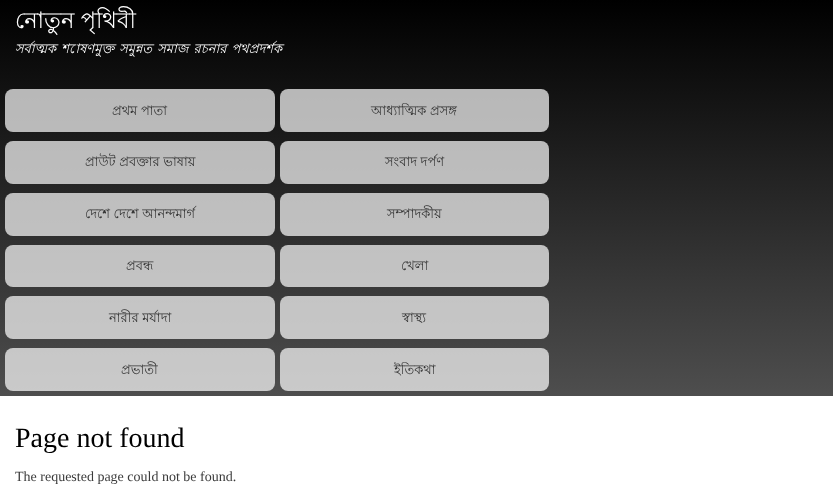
<svg xmlns="http://www.w3.org/2000/svg" width="833" height="488" viewBox="0 0 833 488">
  <defs>
    <linearGradient id="g1" gradientUnits="userSpaceOnUse" x1="417" y1="0" x2="417" y2="396"><stop offset="0" stop-color="rgb(0,0,0)"/><stop offset="1" stop-color="rgb(78,78,78)"/></linearGradient>
  </defs>
  <rect width="100%" height="100%" fill="rgb(255,255,255)"/>
  <rect x="0" y="0" width="833" height="396" fill="url(#g1)"/>
  <text x="15" y="28" font-family="Lohit Bengali" font-size="22.5" fill="rgb(255,255,255)">নোতুন পৃথিবী</text>
  <text x="15" y="53" word-spacing="1.5" font-family="Lohit Bengali" font-size="13" font-style="italic" fill="rgb(255,255,255)">সর্বাত্মক শোষণমুক্ত সমুন্নত সমাজ রচনার পথপ্রদর্শক</text>
  <rect x="5" y="89" width="270" height="43" rx="8" fill="rgba(255,255,255,0.7)"/>
  <text x="112" y="115" font-family="Lohit Bengali" font-size="13" fill="rgb(51,51,51)">প্রথম পাতা</text>
  <rect x="280" y="89" width="269" height="43" rx="8" fill="rgba(255,255,255,0.7)"/>
  <text x="371" y="115" font-family="Lohit Bengali" font-size="13" fill="rgb(51,51,51)">আধ্যাত্মিক প্রসঙ্গ</text>
  <rect x="5" y="141" width="270" height="43" rx="8" fill="rgba(255,255,255,0.7)"/>
  <text x="85" y="166" font-family="Lohit Bengali" font-size="13" fill="rgb(51,51,51)">প্রাউট প্রবক্তার ভাষায়</text>
  <rect x="280" y="141" width="269" height="43" rx="8" fill="rgba(255,255,255,0.7)"/>
  <text x="385" y="166" font-family="Lohit Bengali" font-size="13" fill="rgb(51,51,51)">সংবাদ দর্পণ</text>
  <rect x="5" y="193" width="270" height="43" rx="8" fill="rgba(255,255,255,0.7)"/>
  <text x="85" y="218" font-family="Lohit Bengali" font-size="13" fill="rgb(51,51,51)">দেশে দেশে আনন্দমার্গ</text>
  <rect x="280" y="193" width="269" height="43" rx="8" fill="rgba(255,255,255,0.7)"/>
  <text x="387" y="218" font-family="Lohit Bengali" font-size="13" fill="rgb(51,51,51)">সম্পাদকীয়</text>
  <rect x="5" y="245" width="270" height="42" rx="8" fill="rgba(255,255,255,0.7)"/>
  <text x="126" y="270" font-family="Lohit Bengali" font-size="13" fill="rgb(51,51,51)">প্রবন্ধ</text>
  <rect x="280" y="245" width="269" height="42" rx="8" fill="rgba(255,255,255,0.7)"/>
  <text x="401" y="270" font-family="Lohit Bengali" font-size="13" fill="rgb(51,51,51)">খেলা</text>
  <rect x="5" y="296" width="270" height="43" rx="8" fill="rgba(255,255,255,0.7)"/>
  <text x="109" y="322" font-family="Lohit Bengali" font-size="13" fill="rgb(51,51,51)">নারীর মর্যাদা</text>
  <rect x="280" y="296" width="269" height="43" rx="8" fill="rgba(255,255,255,0.7)"/>
  <text x="402" y="322" font-family="Lohit Bengali" font-size="13" fill="rgb(51,51,51)">স্বাস্থ্য</text>
  <rect x="5" y="348" width="270" height="43" rx="8" fill="rgba(255,255,255,0.7)"/>
  <text x="121" y="374" font-family="Lohit Bengali" font-size="13" fill="rgb(51,51,51)">প্রভাতী</text>
  <rect x="280" y="348" width="269" height="43" rx="8" fill="rgba(255,255,255,0.7)"/>
  <text x="394" y="374" font-family="Lohit Bengali" font-size="13" fill="rgb(51,51,51)">ইতিকথা</text>
  <text x="15" y="447" font-family="Liberation Serif" font-size="28" fill="rgb(0,0,0)">Page not found</text>
  <text x="15" y="481" font-family="Liberation Serif" font-size="14" fill="rgb(59,59,59)">The requested page could not be found.</text>
</svg>
